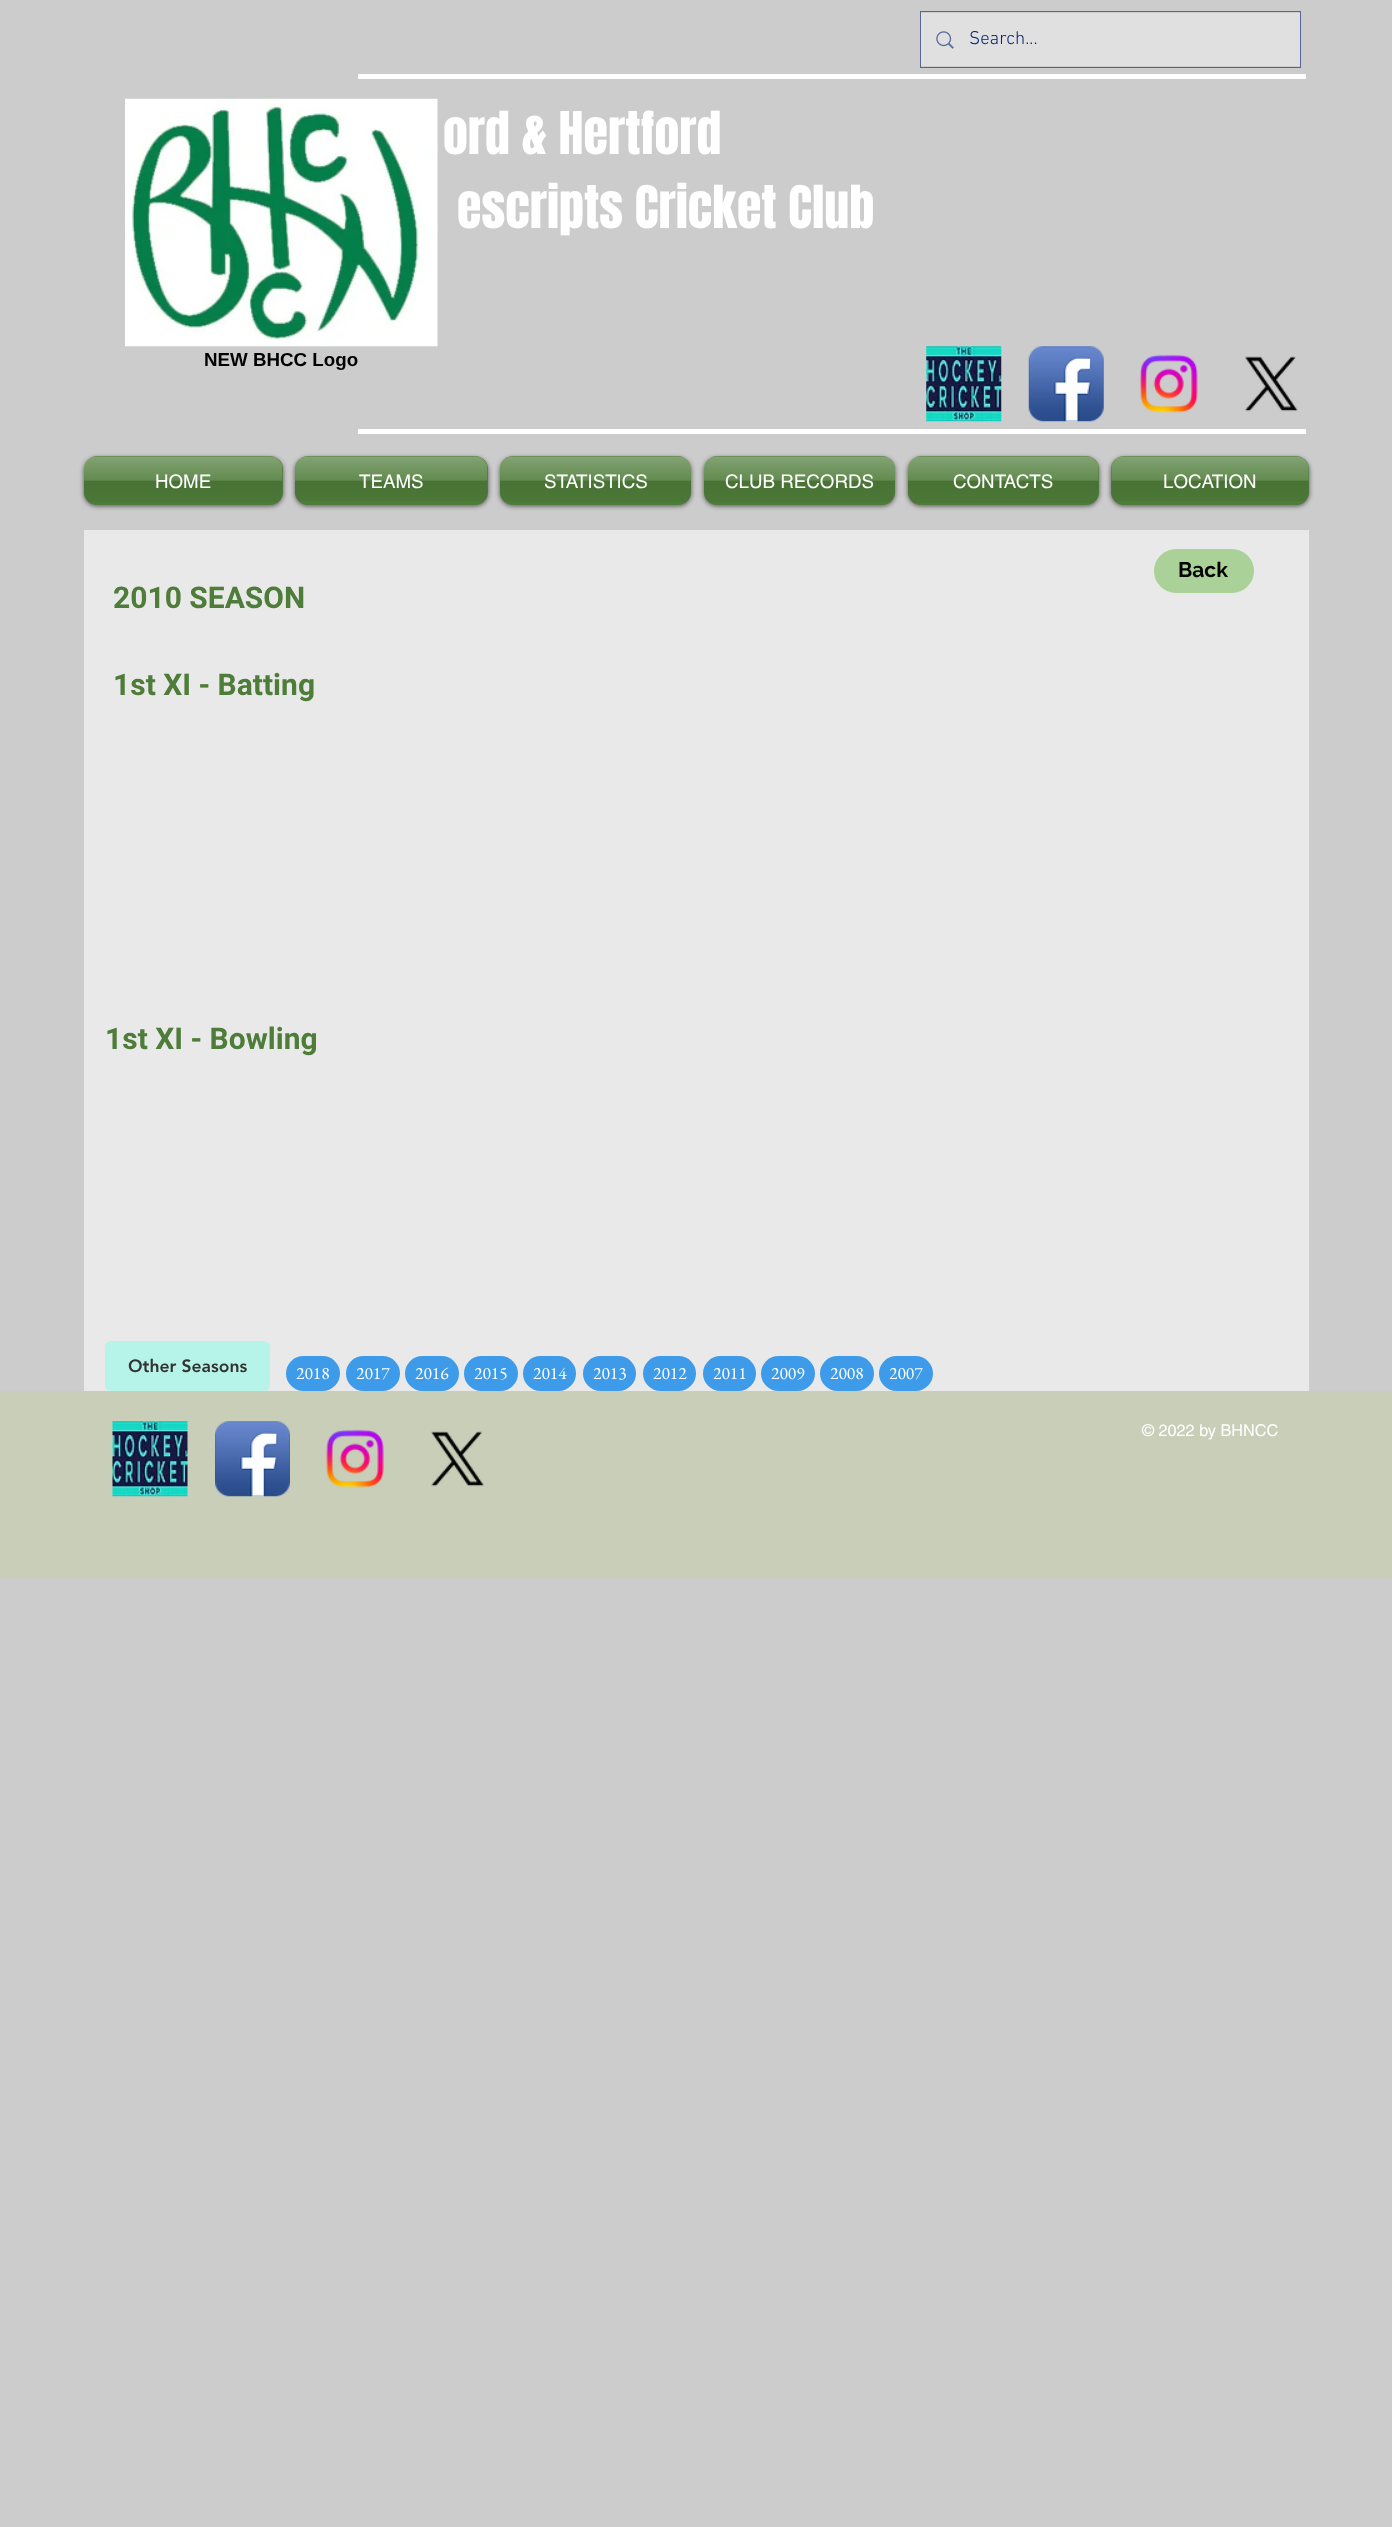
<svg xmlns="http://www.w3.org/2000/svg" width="1392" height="2527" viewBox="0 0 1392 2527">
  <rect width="100%" height="100%" fill="rgb(204,204,204)"/>
  <rect x="920.5" y="11.5" width="380" height="56" fill="none" stroke="rgb(85,102,150)"/>
  <rect x="921" y="13" width="379" height="53" fill="rgb(224,224,224)"/>
  <image x="936" y="31" width="18" height="18" href="pic1.png"/>
  <text x="969" y="44" font-family="'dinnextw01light'" font-size="18.75" font-weight="300" fill="rgb(6,34,114)">Search...</text>
  <rect x="358" y="74" width="948" height="5" fill="rgb(255,255,255)"/>
  <g font-family="Anton" font-size="50" fill="rgb(255,255,255)">
    <text x="443" y="154">ord &amp; Hertford</text>
    <text x="457" y="228">escripts Cricket Club</text>
  </g>
  <image x="125" y="98" width="313" height="249" href="pic2.png"/>
  <text x="204" y="366" font-family="Liberation Sans" font-size="18.75" font-weight="bold" fill="rgb(0,0,0)">NEW BHCC Logo</text>
  <image x="926" y="346" width="76" height="76" href="pic3.png"/>
  <image x="1028" y="346" width="76" height="76" href="pic4.png"/>
  <image x="1140" y="354" width="58" height="59" href="pic5.png"/>
  <image x="1245" y="356" width="53" height="56" href="pic6.png"/>
  <rect x="358" y="429" width="948" height="5" fill="rgb(255,255,255)"/>
  <rect x="84" y="458" width="199" height="48" rx="13" fill="rgba(0,0,0,0.6)" filter="blur(2.5px)"/>
  <rect x="84" y="456" width="199" height="49" rx="13" fill="rgb(78,124,57)"/>
  <image x="84" y="456" width="199" height="46" href="pic7.png"/>
  <text x="155" y="488" font-family="helvetica" font-size="18.75" fill="rgb(255,255,255)">HOME</text>
  <rect x="295" y="458" width="193" height="48" rx="13" fill="rgba(0,0,0,0.6)" filter="blur(2.5px)"/>
  <rect x="295" y="456" width="193" height="49" rx="13" fill="rgb(78,124,57)"/>
  <image x="295" y="456" width="193" height="45" href="pic8.png"/>
  <text x="359" y="488" font-family="helvetica" font-size="18.75" fill="rgb(255,255,255)">TEAMS</text>
  <rect x="500" y="458" width="191" height="48" rx="13" fill="rgba(0,0,0,0.6)" filter="blur(2.5px)"/>
  <rect x="500" y="456" width="191" height="49" rx="13" fill="rgb(78,124,57)"/>
  <image x="500" y="456" width="191" height="46" href="pic9.png"/>
  <text x="544" y="488" font-family="helvetica" font-size="18.75" fill="rgb(255,255,255)">STATISTICS</text>
  <rect x="704" y="458" width="191" height="48" rx="13" fill="rgba(0,0,0,0.6)" filter="blur(2.5px)"/>
  <rect x="704" y="456" width="191" height="49" rx="13" fill="rgb(78,124,57)"/>
  <image x="704" y="456" width="191" height="46" href="pic10.png"/>
  <text x="725" y="488" font-family="helvetica" font-size="18.75" fill="rgb(255,255,255)">CLUB RECORDS</text>
  <rect x="908" y="458" width="191" height="48" rx="13" fill="rgba(0,0,0,0.6)" filter="blur(2.5px)"/>
  <rect x="908" y="456" width="191" height="49" rx="13" fill="rgb(78,124,57)"/>
  <image x="908" y="456" width="191" height="47" href="pic11.png"/>
  <text x="953" y="488" font-family="helvetica" font-size="18.75" fill="rgb(255,255,255)">CONTACTS</text>
  <rect x="1111" y="458" width="198" height="48" rx="13" fill="rgba(0,0,0,0.6)" filter="blur(2.5px)"/>
  <rect x="1111" y="456" width="198" height="49" rx="13" fill="rgb(78,124,57)"/>
  <image x="1111" y="456" width="198" height="45" href="pic12.png"/>
  <text x="1163" y="488" font-family="helvetica" font-size="18.75" fill="rgb(255,255,255)">LOCATION</text>
  <rect x="84" y="530" width="1225" height="861" fill="rgb(233,233,233)"/>
  <rect x="1154" y="549" width="100" height="44" rx="22" fill="rgb(170,209,152)"/>
  <text x="1178" y="577" font-family="Raleway" font-size="21" font-weight="bold" fill="rgb(0,0,0)">Back</text>
  <g font-family="Roboto" font-size="30" font-weight="bold" fill="rgb(78,124,57)">
    <text x="113" y="608">2010 SEASON</text>
    <text x="113" y="695">1st XI - Batting</text>
    <text x="105" y="1049">1st XI - Bowling</text>
  </g>
  <rect x="105" y="1341" width="165" height="50" rx="6" fill="rgb(182,243,232)"/>
  <text x="128" y="1372" font-family="'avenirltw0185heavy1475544'" font-size="17.5" font-weight="900" fill="rgb(50,50,50)">Other Seasons</text>
  <rect x="286" y="1356" width="54" height="35" rx="17.5" fill="rgb(61,155,233)"/>
  <text x="296" y="1379" font-family="EB Garamond" font-size="17.5" fill="rgb(255,255,255)">2018</text>
  <rect x="346" y="1356" width="54" height="35" rx="17.5" fill="rgb(61,155,233)"/>
  <text x="356" y="1379" font-family="EB Garamond" font-size="17.5" fill="rgb(255,255,255)">2017</text>
  <rect x="405" y="1356" width="54" height="35" rx="17.5" fill="rgb(61,155,233)"/>
  <text x="415" y="1379" font-family="EB Garamond" font-size="17.5" fill="rgb(255,255,255)">2016</text>
  <rect x="464" y="1356" width="54" height="35" rx="17.5" fill="rgb(61,155,233)"/>
  <text x="474" y="1379" font-family="EB Garamond" font-size="17.5" fill="rgb(255,255,255)">2015</text>
  <rect x="523" y="1356" width="53" height="35" rx="17.5" fill="rgb(61,155,233)"/>
  <text x="533" y="1379" font-family="EB Garamond" font-size="17.5" fill="rgb(255,255,255)">2014</text>
  <rect x="583" y="1356" width="53" height="35" rx="17.5" fill="rgb(61,155,233)"/>
  <text x="593" y="1379" font-family="EB Garamond" font-size="17.5" fill="rgb(255,255,255)">2013</text>
  <rect x="643" y="1356" width="53" height="35" rx="17.5" fill="rgb(61,155,233)"/>
  <text x="653" y="1379" font-family="EB Garamond" font-size="17.5" fill="rgb(255,255,255)">2012</text>
  <rect x="703" y="1356" width="53" height="35" rx="17.5" fill="rgb(61,155,233)"/>
  <text x="713" y="1379" font-family="EB Garamond" font-size="17.5" fill="rgb(255,255,255)">2011</text>
  <rect x="761" y="1356" width="54" height="35" rx="17.5" fill="rgb(61,155,233)"/>
  <text x="771" y="1379" font-family="EB Garamond" font-size="17.5" fill="rgb(255,255,255)">2009</text>
  <rect x="820" y="1356" width="54" height="35" rx="17.5" fill="rgb(61,155,233)"/>
  <text x="830" y="1379" font-family="EB Garamond" font-size="17.5" fill="rgb(255,255,255)">2008</text>
  <rect x="879" y="1356" width="54" height="35" rx="17.5" fill="rgb(61,155,233)"/>
  <text x="889" y="1379" font-family="EB Garamond" font-size="17.5" fill="rgb(255,255,255)">2007</text>
  <rect x="0" y="1391" width="1392" height="187" fill="rgb(201,206,184)"/>
  <image x="112" y="1421" width="76" height="76" href="pic13.png"/>
  <image x="215" y="1421" width="75" height="76" href="pic14.png"/>
  <image x="326" y="1429" width="58" height="59" href="pic15.png"/>
  <image x="431" y="1431" width="53" height="56" href="pic16.png"/>
  <text x="1142" y="1436" font-family="helvetica" font-size="16.25" fill="rgb(255,255,255)">© 2022 by BHNCC</text>
</svg>
